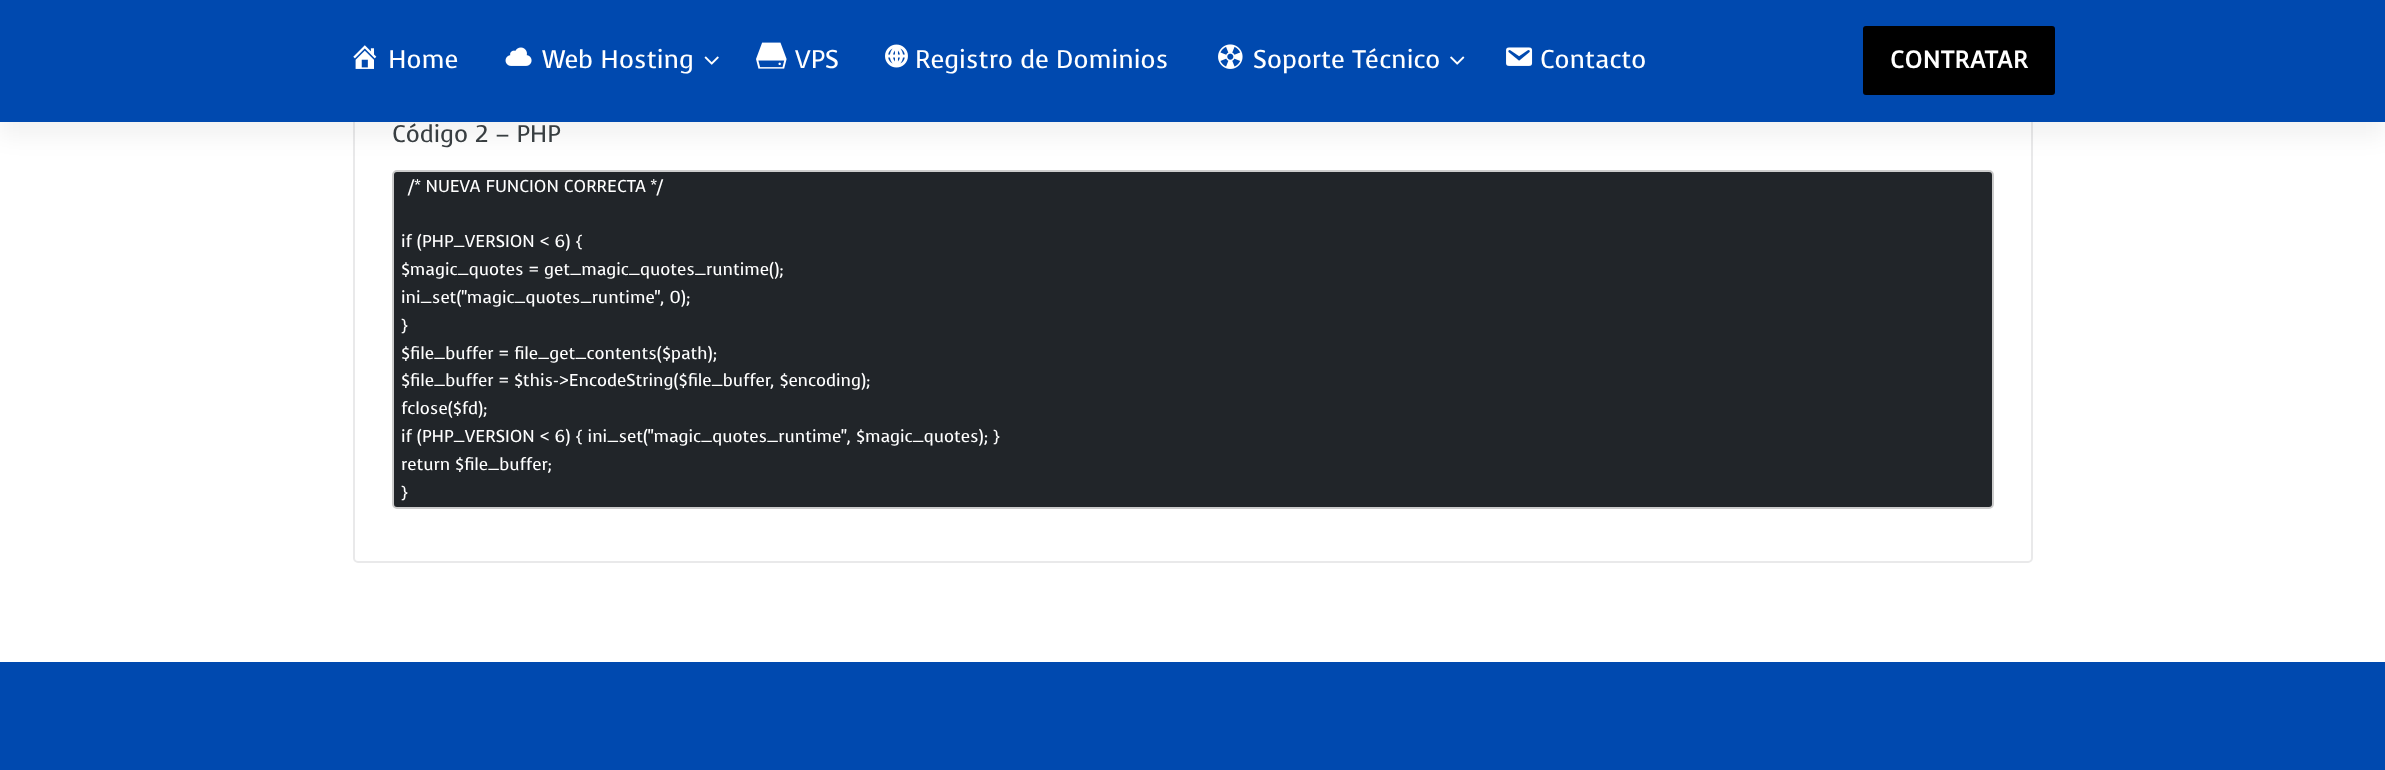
<svg xmlns="http://www.w3.org/2000/svg" width="2385" height="770" viewBox="0 0 2385 770">
  <rect width="100%" height="100%" fill="rgb(255,255,255)"/>
  <rect x="354" y="-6" width="1678" height="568" rx="4" fill="none" stroke="rgb(233,233,234)" stroke-width="2"/>
  <rect x="393" y="171" width="1600" height="337" rx="4" fill="rgb(33,37,41)" stroke="rgb(204,204,204)" stroke-width="2"/>
  <rect x="0" y="14" width="2385" height="123" fill="rgba(0,0,0,0.05)" filter="blur(11px)"/>
  <rect x="0" y="0" width="2385" height="122" fill="rgb(0,73,175)"/>
  <image x="353" y="45" width="24" height="24" href="pic1.png"/>
  <text x="388" y="68" font-family="Voces" font-size="25.5" fill="rgb(255,255,255)">Home</text>
  <image x="505" y="47" width="27" height="19" href="pic2.png"/>
  <text x="542" y="68" font-family="Voces" font-size="25.5" fill="rgb(255,255,255)">Web Hosting</text>
  <image x="704" y="56" width="15" height="9" href="pic3.png"/>
  <image x="756" y="42" width="31" height="27" href="pic4.png"/>
  <text x="795" y="68" font-family="Voces" font-size="25.5" fill="rgb(255,255,255)">VPS</text>
  <image x="885" y="44" width="23" height="24" href="pic5.png"/>
  <text x="915" y="68" font-family="Voces" font-size="25.5" fill="rgb(255,255,255)">Registro de Dominios</text>
  <image x="1218" y="44" width="25" height="25" href="pic6.png"/>
  <text x="1253" y="68" font-family="Voces" font-size="25.5" fill="rgb(255,255,255)">Soporte Técnico</text>
  <image x="1450" y="56" width="15" height="9" href="pic7.png"/>
  <image x="1506" y="47" width="27" height="19" href="pic8.png"/>
  <text x="1540" y="68" font-family="Voces" font-size="25.5" fill="rgb(255,255,255)">Contacto</text>
  <rect x="1864.5" y="27.5" width="189" height="66" rx="1.5" fill="rgb(0,0,0)" stroke="rgb(0,0,0)" stroke-width="3"/>
  <text x="1890" y="68" font-family="Voces" font-size="24" font-weight="bold" letter-spacing="0.75" fill="rgb(255,255,255)">CONTRATAR</text>
  <text x="392" y="142" font-family="Voces" font-size="24" fill="rgb(56,62,65)">Código 2 – PHP</text>
  <g font-family="Voces" font-size="17.15" fill="rgb(255,255,255)">
    <text x="408" y="192">/* NUEVA FUNCION CORRECTA */</text>
    <text>
      <tspan x="401" y="247">if (PHP_VERSION &lt; 6) {</tspan>
      <tspan x="401" y="275">$magic_quotes = get_magic_quotes_runtime();</tspan>
      <tspan x="401" y="303">ini_set("magic_quotes_runtime", 0);</tspan>
      <tspan x="401" y="331">}</tspan>
      <tspan x="401" y="359">$file_buffer = file_get_contents($path);</tspan>
      <tspan x="401" y="386">$file_buffer = $this-&gt;EncodeString($file_buffer</tspan>
    </text>
    <text x="770" y="386">, $encoding);</text>
    <text>
      <tspan x="401" y="414">fclose($fd);</tspan>
      <tspan x="401" y="442">if (PHP_VERSION &lt; 6) { ini_set("magic_quotes_runtime", $magic_quotes); }</tspan>
      <tspan x="401" y="470">return $file_buffer;</tspan>
      <tspan x="401" y="498">}</tspan>
    </text>
  </g>
  <rect x="0" y="662" width="2385" height="108" fill="rgb(0,73,175)"/>
</svg>
